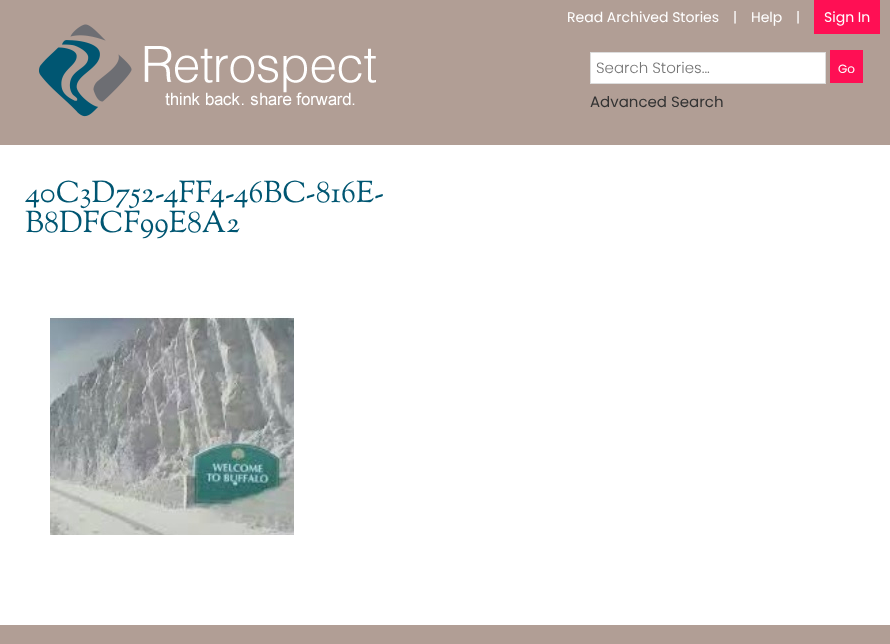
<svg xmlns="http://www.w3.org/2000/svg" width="890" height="644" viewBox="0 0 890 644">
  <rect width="100%" height="100%" fill="rgb(255,255,255)"/>
  <rect x="0" y="0" width="890" height="145" fill="rgb(177,158,149)"/>
  <g font-family="Poppins" font-size="14" fill="rgb(255,255,255)">
    <text x="567" y="22">Read Archived Stories</text>
    <text x="733" y="22">|</text>
    <text x="751" y="22">Help</text>
    <text x="796" y="22">|</text>
  </g>
  <rect x="814" y="0" width="66" height="34" fill="rgb(255,15,84)"/>
  <text x="824" y="22" font-family="Poppins" font-size="14" fill="rgb(255,255,255)">Sign In</text>
  <image x="39" y="24" width="337" height="93" href="pic1.png"/>
  <rect x="590.5" y="52.5" width="235" height="31" fill="rgb(255,255,255)" stroke="rgb(221,221,221)"/>
  <text x="596" y="73" font-family="Poppins" font-size="15" font-weight="300" fill="rgb(117,117,117)">Search Stories...</text>
  <rect x="830" y="50" width="33" height="33" fill="rgb(255,15,84)"/>
  <text x="838" y="73" font-family="Poppins" font-size="12" fill="rgb(255,255,255)">Go</text>
  <text x="590" y="107" font-family="Poppins" font-size="15" fill="rgb(51,51,51)">Advanced Search</text>
  <g font-family="Sorts Mill Goudy" font-size="30" fill="rgb(0,86,114)">
    <text>
      <tspan x="25" y="202">40C3D752-4FF4-46BC-816E-</tspan>
      <tspan x="25" y="232">B8DFCF99E8A2</tspan>
    </text>
  </g>
  <image x="50" y="315" width="244" height="220" href="pic2.png"/>
  <rect x="0" y="625" width="890" height="19" fill="rgb(177,158,149)"/>
</svg>
